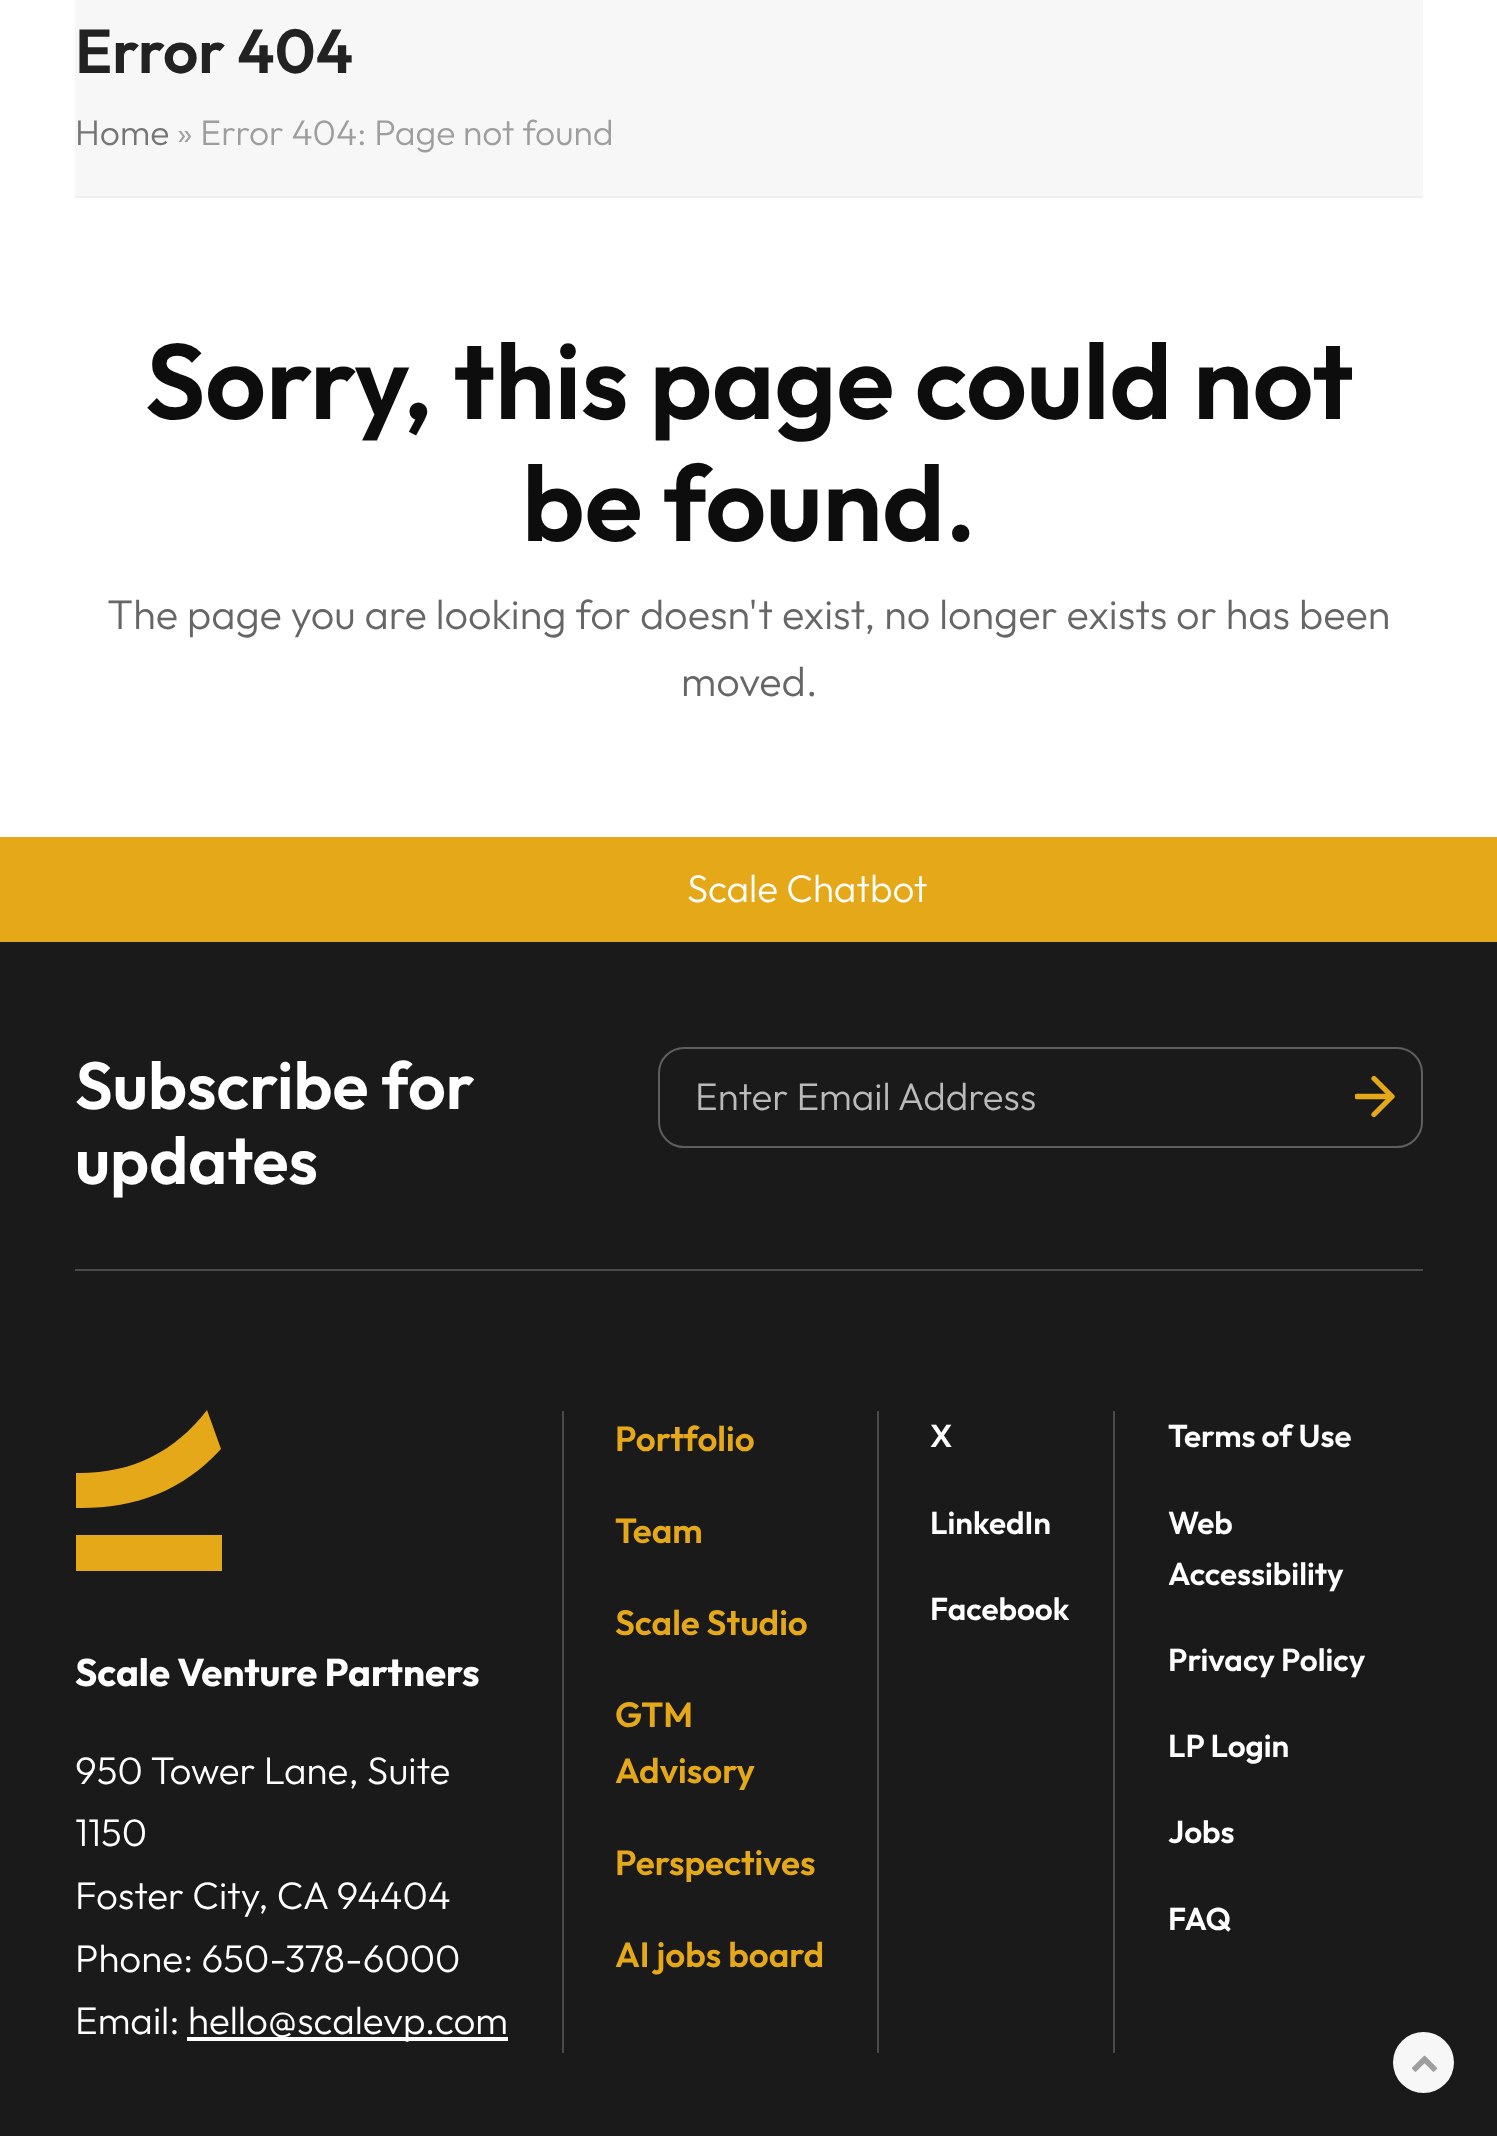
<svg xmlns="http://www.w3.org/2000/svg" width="1497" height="2136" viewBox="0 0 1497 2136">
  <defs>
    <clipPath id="clip1"><rect x="1355" y="1075" width="40" height="43"/></clipPath>
  </defs>
  <rect width="100%" height="100%" fill="rgb(255,255,255)"/>
  <rect x="75" y="0" width="1348" height="196" fill="rgb(247,247,247)"/>
  <rect x="75" y="196" width="1348" height="2" fill="rgb(238,238,238)"/>
  <text x="75" y="73" font-family="Outfit" font-size="62" font-weight="600" fill="rgb(34,34,34)">Error 404</text>
  <text x="75" y="145" font-family="Outfit" font-size="35.5" font-weight="300" fill="rgb(117,117,117)">Home</text>
  <text x="177" y="145" font-family="Outfit" font-size="35.5" font-weight="300" fill="rgb(158,158,158)">» Error 404: Page not found</text>
  <g font-family="Outfit" font-size="106.6" font-weight="600" fill="rgb(13,13,13)">
    <text x="145" y="419">Sorry, this page could not</text>
    <text x="522" y="541">be found.</text>
  </g>
  <g font-family="Outfit" font-size="41.45" font-weight="300" fill="rgb(102,102,102)">
    <text x="107" y="629">The page you are looking for doesn't exist, no longer exists or has been</text>
    <text x="681" y="696">moved.</text>
  </g>
  <rect x="0" y="837" width="1497" height="105" fill="rgb(229,168,25)"/>
  <text x="687" y="902" font-family="Outfit" font-size="38.5" font-weight="300" fill="rgb(255,255,255)">Scale Chatbot</text>
  <rect x="0" y="942" width="1497" height="1194" fill="rgb(26,26,26)"/>
  <g font-family="Outfit" font-size="66.5" font-weight="600" fill="rgb(255,255,255)">
    <text>
      <tspan x="75" y="1109">Subscribe for</tspan>
      <tspan x="75" y="1184">updates</tspan>
    </text>
  </g>
  <rect x="659" y="1048" width="763" height="99" rx="25" fill="none" stroke="rgb(95,95,95)" stroke-width="2"/>
  <text x="695" y="1110" font-family="Outfit" font-size="38.5" font-weight="300" fill="rgb(186,186,186)">Enter Email Address</text>
  <g clip-path="url(#clip1)">
    <path d="M1357 1096.5H1389" fill="none" stroke="rgb(229,168,25)" stroke-width="5.3" stroke-linecap="round" stroke-linejoin="round"/>
  </g>
  <path d="M1374 1078.5L1392 1096.5L1374 1114.5" fill="none" stroke="rgb(229,168,25)" stroke-width="5.3" stroke-linecap="round" stroke-linejoin="round"/>
  <rect x="75" y="1269" width="1348" height="2" fill="rgb(74,74,74)"/>
  <path d="M76 1473C130 1474 174 1453 207 1410L221 1449C182 1492 133 1509 76 1508Z" fill="rgb(229,168,25)"/>
  <rect x="76" y="1535" width="146" height="36" fill="rgb(229,168,25)"/>
  <text x="75" y="1686" font-family="Outfit" font-size="38.5" font-weight="bold" fill="rgb(255,255,255)">Scale Venture Partners</text>
  <g font-family="Outfit" font-size="38.5" font-weight="300" fill="rgb(255,255,255)">
    <text>
      <tspan x="75" y="1784">950 Tower Lane, Suite</tspan>
      <tspan x="75" y="1846">1150</tspan>
      <tspan x="75" y="1909">Foster City, CA 94404</tspan>
      <tspan x="75" y="1972">Phone: 650-378-6000</tspan>
      <tspan x="75" y="2034">Email:</tspan>
    </text>
  </g>
  <rect x="187" y="2037" width="321" height="4" fill="rgb(255,255,255)"/>
  <text x="188" y="2034" font-family="Outfit" font-size="38.5" font-weight="300" fill="rgb(255,255,255)">hello@scalevp.com</text>
  <rect x="562" y="1411" width="2" height="642" fill="rgb(74,74,74)"/>
  <g font-family="Outfit" font-size="35" font-weight="600" fill="rgb(229,168,25)">
    <text x="615" y="1451">Portfolio</text>
    <text x="615" y="1543">Team</text>
    <text x="615" y="1635">Scale Studio</text>
    <text>
      <tspan x="615" y="1727">GTM</tspan>
      <tspan x="615" y="1783">Advisory</tspan>
    </text>
    <text x="615" y="1875">Perspectives</text>
    <text x="615" y="1967">AI jobs board</text>
  </g>
  <rect x="877" y="1411" width="2" height="642" fill="rgb(74,74,74)"/>
  <g font-family="Outfit" font-size="31.5" font-weight="600" fill="rgb(255,255,255)">
    <text x="930" y="1447">X</text>
    <text x="930" y="1534">LinkedIn</text>
    <text x="930" y="1620">Facebook</text>
  </g>
  <rect x="1113" y="1411" width="2" height="642" fill="rgb(74,74,74)"/>
  <g font-family="Outfit" font-size="31.5" font-weight="600" fill="rgb(255,255,255)">
    <text x="1168" y="1447">Terms of Use</text>
    <text>
      <tspan x="1168" y="1534">Web</tspan>
      <tspan x="1168" y="1585">Accessibility</tspan>
    </text>
    <text x="1168" y="1671">Privacy Policy</text>
    <text x="1168" y="1757">LP Login</text>
    <text x="1168" y="1843">Jobs</text>
    <text x="1168" y="1930">FAQ</text>
  </g>
  <circle cx="1423.5" cy="2062.5" r="30.5" fill="rgb(247,247,247)"/>
  <image x="1411" y="2055" width="27" height="17" href="pic1.png"/>
</svg>
